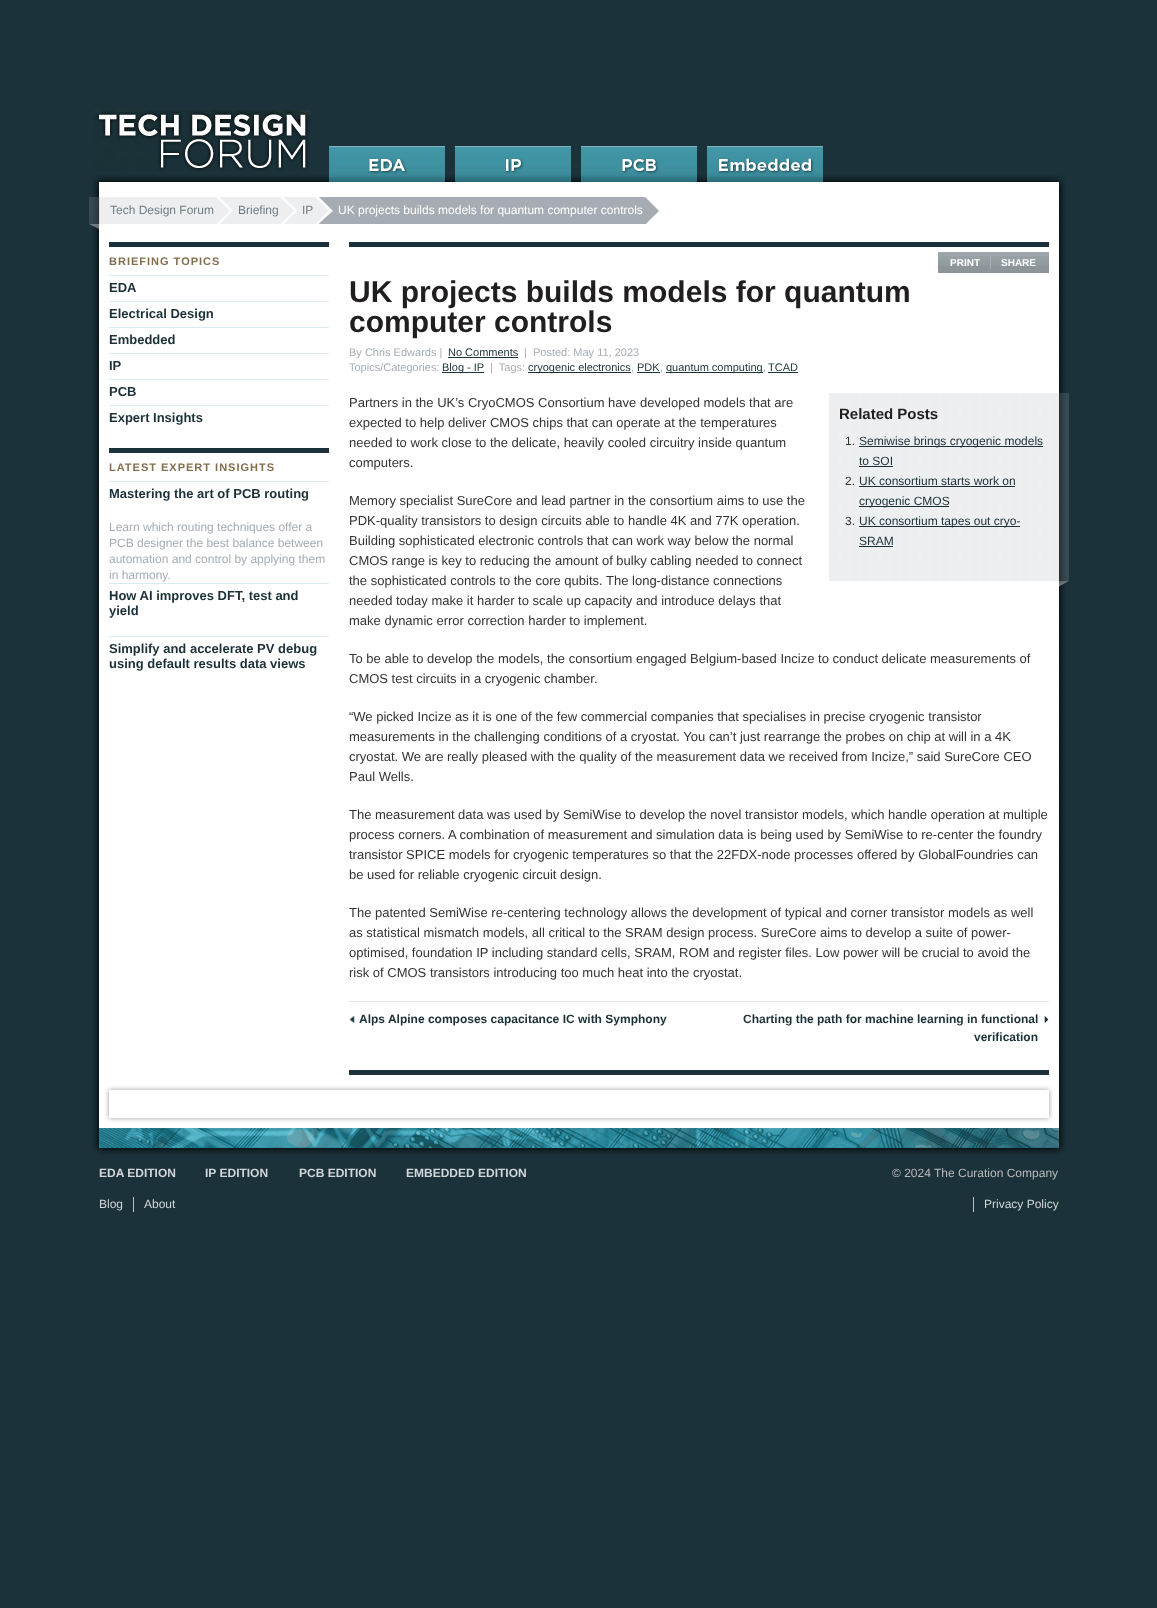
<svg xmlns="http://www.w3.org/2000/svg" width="1157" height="1608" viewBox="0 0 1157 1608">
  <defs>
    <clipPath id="clip1"><path d="M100 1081H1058V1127H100ZM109 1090H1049V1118H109Z" clip-rule="evenodd"/></clipPath>
  </defs>
  <rect width="100%" height="100%" fill="rgb(27,50,58)"/>
  <image x="93" y="175" width="972" height="12" href="pic1.png"/>
  <image x="94" y="110" width="217" height="61" href="pic2.png"/>
  <image x="329" y="146" width="116" height="36" href="pic3.png"/>
  <image x="455" y="146" width="116" height="36" href="pic4.png"/>
  <image x="581" y="146" width="116" height="36" href="pic5.png"/>
  <image x="707" y="146" width="116" height="36" href="pic6.png"/>
  <image x="92" y="187" width="974" height="941" href="pic7.png"/>
  <image x="89" y="197" width="11" height="32" href="pic8.png"/>
  <rect x="99" y="197" width="117" height="27" fill="rgba(165,170,180,0.2)"/>
  <text x="110" y="214" font-family="Liberation Sans" font-size="12" fill="rgb(111,125,131)">Tech Design Forum</text>
  <image x="216" y="197" width="64" height="27" href="pic9.png"/>
  <text x="238" y="214" font-family="Liberation Sans" font-size="12" fill="rgb(111,125,131)">Briefing</text>
  <image x="280" y="197" width="36" height="27" href="pic10.png"/>
  <text x="302" y="214" font-family="Liberation Sans" font-size="12" fill="rgb(111,125,131)">IP</text>
  <image x="644" y="197" width="16" height="27" href="pic11.png"/>
  <rect x="333" y="197" width="311" height="27" fill="rgb(166,172,179)"/>
  <image x="316" y="197" width="17" height="27" href="pic12.png"/>
  <text x="338" y="214" font-family="Liberation Sans" font-size="12" fill="rgb(255,255,255)">UK projects builds models for quantum computer controls</text>
  <rect x="109" y="242" width="220" height="5" fill="rgb(27,50,58)"/>
  <text x="109" y="265" font-family="Liberation Sans" font-size="11" font-weight="bold" letter-spacing="1" fill="rgb(132,110,80)">BRIEFING TOPICS</text>
  <rect x="109" y="275" width="220" height="1" fill="rgb(216,235,239)"/>
  <text x="109" y="292" font-family="Liberation Sans" font-size="13" font-weight="bold" fill="rgb(27,49,55)">EDA</text>
  <rect x="109" y="301" width="220" height="1" fill="rgb(216,235,239)"/>
  <text x="109" y="318" font-family="Liberation Sans" font-size="13" font-weight="bold" fill="rgb(27,49,55)">Electrical Design</text>
  <rect x="109" y="327" width="220" height="1" fill="rgb(216,235,239)"/>
  <text x="109" y="344" font-family="Liberation Sans" font-size="13" font-weight="bold" fill="rgb(27,49,55)">Embedded</text>
  <rect x="109" y="353" width="220" height="1" fill="rgb(216,235,239)"/>
  <text x="109" y="370" font-family="Liberation Sans" font-size="13" font-weight="bold" fill="rgb(27,49,55)">IP</text>
  <rect x="109" y="379" width="220" height="1" fill="rgb(216,235,239)"/>
  <text x="109" y="396" font-family="Liberation Sans" font-size="13" font-weight="bold" fill="rgb(27,49,55)">PCB</text>
  <rect x="109" y="405" width="220" height="1" fill="rgb(216,235,239)"/>
  <text x="109" y="422" font-family="Liberation Sans" font-size="13" font-weight="bold" fill="rgb(27,49,55)">Expert Insights</text>
  <rect x="109" y="448" width="220" height="5" fill="rgb(27,50,58)"/>
  <text x="109" y="471" font-family="Liberation Sans" font-size="11" font-weight="bold" letter-spacing="1" fill="rgb(132,110,80)">LATEST EXPERT INSIGHTS</text>
  <rect x="109" y="481" width="220" height="1" fill="rgb(216,235,239)"/>
  <text x="109" y="498" font-family="Liberation Sans" font-size="13" font-weight="bold" fill="rgb(27,49,55)">Mastering the art of PCB routing</text>
  <g font-family="Liberation Sans" font-size="12" fill="rgb(166,172,179)">
    <text>
      <tspan x="109" y="531">Learn which routing techniques offer a</tspan>
      <tspan x="109" y="547">PCB designer the best balance between</tspan>
      <tspan x="109" y="563">automation and control by applying them</tspan>
      <tspan x="109" y="579">in harmony.</tspan>
    </text>
  </g>
  <rect x="109" y="583" width="220" height="1" fill="rgb(216,235,239)"/>
  <g font-family="Liberation Sans" font-size="13" font-weight="bold" fill="rgb(27,49,55)">
    <text>
      <tspan x="109" y="600">How AI improves DFT, test and</tspan>
      <tspan x="109" y="615">yield</tspan>
    </text>
  </g>
  <rect x="109" y="636" width="220" height="1" fill="rgb(216,235,239)"/>
  <g font-family="Liberation Sans" font-size="13" font-weight="bold" fill="rgb(27,49,55)">
    <text>
      <tspan x="109" y="653">Simplify and accelerate PV debug</tspan>
      <tspan x="109" y="668">using default results data views</tspan>
    </text>
  </g>
  <rect x="349" y="242" width="700" height="5" fill="rgb(27,50,58)"/>
  <rect x="938" y="266" width="111" height="7" fill="rgb(140,150,153)"/>
  <image x="938" y="252" width="111" height="14" href="pic13.png"/>
  <rect x="990" y="256" width="1" height="13" fill="rgb(167,176,178)"/>
  <g font-family="Liberation Sans" font-size="10" font-weight="bold" fill="rgb(255,255,255)">
    <text x="950" y="266">PRINT</text>
    <text x="1001" y="266">SHARE</text>
  </g>
  <g font-family="Liberation Sans" font-size="30" font-weight="bold" fill="rgb(32,30,30)">
    <text>
      <tspan x="349" y="302">UK projects builds models for quantum</tspan>
      <tspan x="349" y="332">computer controls</tspan>
    </text>
  </g>
  <text x="349" y="356" font-family="Liberation Sans" font-size="11" fill="rgb(166,172,179)">By Chris Edwards |</text>
  <text x="448" y="356" font-family="Liberation Sans" font-size="11" fill="rgb(27,49,55)">No Comments</text>
  <rect x="448" y="357" width="70" height="1" fill="rgb(27,50,58)"/>
  <g font-family="Liberation Sans" font-size="11" fill="rgb(166,172,179)">
    <text x="524" y="356" xml:space="preserve">|  Posted: May 11, 2023</text>
    <text x="349" y="371">Topics/Categories:</text>
  </g>
  <rect x="442" y="372" width="42" height="1" fill="rgb(27,50,58)"/>
  <text x="442" y="371" font-family="Liberation Sans" font-size="11" fill="rgb(27,49,55)">Blog - IP</text>
  <text x="490" y="371" font-family="Liberation Sans" font-size="11" fill="rgb(166,172,179)" xml:space="preserve">|  Tags:</text>
  <rect x="528" y="372" width="103" height="1" fill="rgb(27,50,58)"/>
  <text x="528" y="371" font-family="Liberation Sans" font-size="11" fill="rgb(27,49,55)">cryogenic electronics</text>
  <text x="631" y="371" font-family="Liberation Sans" font-size="11" fill="rgb(166,172,179)">,</text>
  <text x="637" y="371" font-family="Liberation Sans" font-size="11" fill="rgb(27,49,55)">PDK</text>
  <rect x="637" y="372" width="23" height="1" fill="rgb(27,50,58)"/>
  <text x="660" y="371" font-family="Liberation Sans" font-size="11" fill="rgb(166,172,179)">,</text>
  <rect x="666" y="372" width="97" height="1" fill="rgb(27,50,58)"/>
  <text x="666" y="371" font-family="Liberation Sans" font-size="11" fill="rgb(27,49,55)">quantum computing</text>
  <text x="763" y="371" font-family="Liberation Sans" font-size="11" fill="rgb(166,172,179)">,</text>
  <text x="768" y="371" font-family="Liberation Sans" font-size="11" fill="rgb(27,49,55)">TCAD</text>
  <rect x="768" y="372" width="30" height="1" fill="rgb(27,50,58)"/>
  <g font-family="Liberation Sans" font-size="13" fill="rgb(51,51,51)">
    <text>
      <tspan x="349" y="407">Partners in the UK’s CryoCMOS Consortium have developed models that are</tspan>
      <tspan x="349" y="427">expected to help deliver CMOS chips that can operate at the temperatures</tspan>
      <tspan x="349" y="447">needed to work close to the delicate, heavily cooled circuitry inside quantum</tspan>
      <tspan x="349" y="467">computers.</tspan>
    </text>
  </g>
  <image x="1059" y="581" width="10" height="6" href="pic14.png"/>
  <image x="829" y="393" width="240" height="188" href="pic15.png"/>
  <text x="839" y="419" font-family="Liberation Sans" font-size="15" font-weight="bold" fill="rgb(32,30,30)">Related Posts</text>
  <text x="845" y="445" font-family="Liberation Sans" font-size="12" fill="rgb(51,51,51)">1.</text>
  <rect x="859" y="446" width="184" height="1" fill="rgb(27,50,58)"/>
  <g font-family="Liberation Sans" font-size="12" fill="rgb(27,49,55)">
    <text>
      <tspan x="859" y="445">Semiwise brings cryogenic models</tspan>
      <tspan x="859" y="465">to SOI</tspan>
    </text>
  </g>
  <rect x="859" y="466" width="34" height="1" fill="rgb(27,50,58)"/>
  <text x="845" y="485" font-family="Liberation Sans" font-size="12" fill="rgb(51,51,51)">2.</text>
  <text x="859" y="485" font-family="Liberation Sans" font-size="12" fill="rgb(27,49,55)">UK consortium starts work on</text>
  <rect x="859" y="486" width="156" height="1" fill="rgb(27,50,58)"/>
  <rect x="859" y="506" width="90" height="1" fill="rgb(27,50,58)"/>
  <text x="859" y="505" font-family="Liberation Sans" font-size="12" fill="rgb(27,49,55)">cryogenic CMOS</text>
  <text x="845" y="525" font-family="Liberation Sans" font-size="12" fill="rgb(51,51,51)">3.</text>
  <rect x="859" y="526" width="161" height="1" fill="rgb(27,50,58)"/>
  <g font-family="Liberation Sans" font-size="12" fill="rgb(27,49,55)">
    <text>
      <tspan x="859" y="525">UK consortium tapes out cryo-</tspan>
      <tspan x="859" y="545">SRAM</tspan>
    </text>
  </g>
  <rect x="859" y="546" width="34" height="1" fill="rgb(27,50,58)"/>
  <g font-family="Liberation Sans" font-size="13" fill="rgb(51,51,51)">
    <text>
      <tspan x="349" y="505">Memory specialist SureCore and lead partner in the consortium aims to use the</tspan>
      <tspan x="349" y="525">PDK-quality transistors to design circuits able to handle 4K and 77K operation.</tspan>
      <tspan x="349" y="545">Building sophisticated electronic controls that can work way below the normal</tspan>
      <tspan x="349" y="565">CMOS range is key to reducing the amount of bulky cabling needed to connect</tspan>
      <tspan x="349" y="585">the sophisticated controls to the core qubits. The long-distance connections</tspan>
      <tspan x="349" y="605">needed today make it harder to scale up capacity and introduce delays that</tspan>
      <tspan x="349" y="625">make dynamic error correction harder to implement.</tspan>
    </text>
    <text>
      <tspan x="349" y="663">To be able to develop the models, the consortium engaged Belgium-based Incize to conduct delicate measurements of</tspan>
      <tspan x="349" y="683">CMOS test circuits in a cryogenic chamber.</tspan>
    </text>
    <text>
      <tspan x="349" y="721">“We picked Incize as it is one of the few commercial companies that specialises in precise cryogenic transistor</tspan>
      <tspan x="349" y="741">measurements in the challenging conditions of a cryostat. You can’t just rearrange the probes on chip at will in a 4K</tspan>
      <tspan x="349" y="761">cryostat. We are really pleased with the quality of the measurement data we received from Incize,” said SureCore CEO</tspan>
      <tspan x="349" y="781">Paul Wells.</tspan>
    </text>
    <text>
      <tspan x="349" y="819">The measurement data was used by SemiWise to develop the novel transistor models, which handle operation at multiple</tspan>
      <tspan x="349" y="839">process corners. A combination of measurement and simulation data is being used by SemiWise to re-center the foundry</tspan>
      <tspan x="349" y="859">transistor SPICE models for cryogenic temperatures so that the 22FDX-node processes offered by GlobalFoundries can</tspan>
      <tspan x="349" y="879">be used for reliable cryogenic circuit design.</tspan>
    </text>
    <text>
      <tspan x="349" y="917">The patented SemiWise re-centering technology allows the development of typical and corner transistor models as well</tspan>
      <tspan x="349" y="937">as statistical mismatch models, all critical to the SRAM design process. SureCore aims to develop a suite of power-</tspan>
      <tspan x="349" y="957">optimised, foundation IP including standard cells, SRAM, ROM and register files. Low power will be crucial to avoid the</tspan>
      <tspan x="349" y="977">risk of CMOS transistors introducing too much heat into the cryostat.</tspan>
    </text>
  </g>
  <rect x="349" y="1001" width="700" height="1" fill="rgb(229,229,229)"/>
  <image x="349" y="1016" width="6" height="7" href="pic16.png"/>
  <text x="359" y="1023" font-family="Liberation Sans" font-size="12" font-weight="bold" fill="rgb(27,49,55)">Alps Alpine composes capacitance IC with Symphony</text>
  <image x="1044" y="1016" width="5" height="7" href="pic17.png"/>
  <g font-family="Liberation Sans" font-size="12" font-weight="bold" fill="rgb(27,49,55)">
    <text x="743" y="1023">Charting the path for machine learning in functional</text>
    <text x="974" y="1041">verification</text>
  </g>
  <rect x="349" y="1070" width="700" height="5" fill="rgb(27,50,58)"/>
  <g clip-path="url(#clip1)">
    <rect x="109" y="1090" width="940" height="28" fill="rgba(0,0,0,0.4)" filter="blur(2.5px)"/>
  </g>
  <image x="92" y="1128" width="974" height="27" href="pic18.png"/>
  <g font-family="Liberation Sans" font-size="12" font-weight="bold" fill="rgb(209,214,216)">
    <text x="99" y="1177">EDA EDITION</text>
    <text x="205" y="1177">IP EDITION</text>
    <text x="299" y="1177">PCB EDITION</text>
    <text x="406" y="1177">EMBEDDED EDITION</text>
  </g>
  <rect x="133" y="1197" width="1" height="15" fill="rgb(187,194,196)"/>
  <g font-family="Liberation Sans" font-size="12" fill="rgb(209,214,216)">
    <text x="99" y="1208">Blog</text>
    <text x="144" y="1208">About</text>
  </g>
  <text x="892" y="1177" font-family="Liberation Sans" font-size="12" fill="rgb(187,187,187)">© 2024 The Curation Company</text>
  <rect x="973" y="1197" width="1" height="15" fill="rgb(187,194,196)"/>
  <text x="984" y="1208" font-family="Liberation Sans" font-size="12" fill="rgb(209,214,216)">Privacy Policy</text>
</svg>
